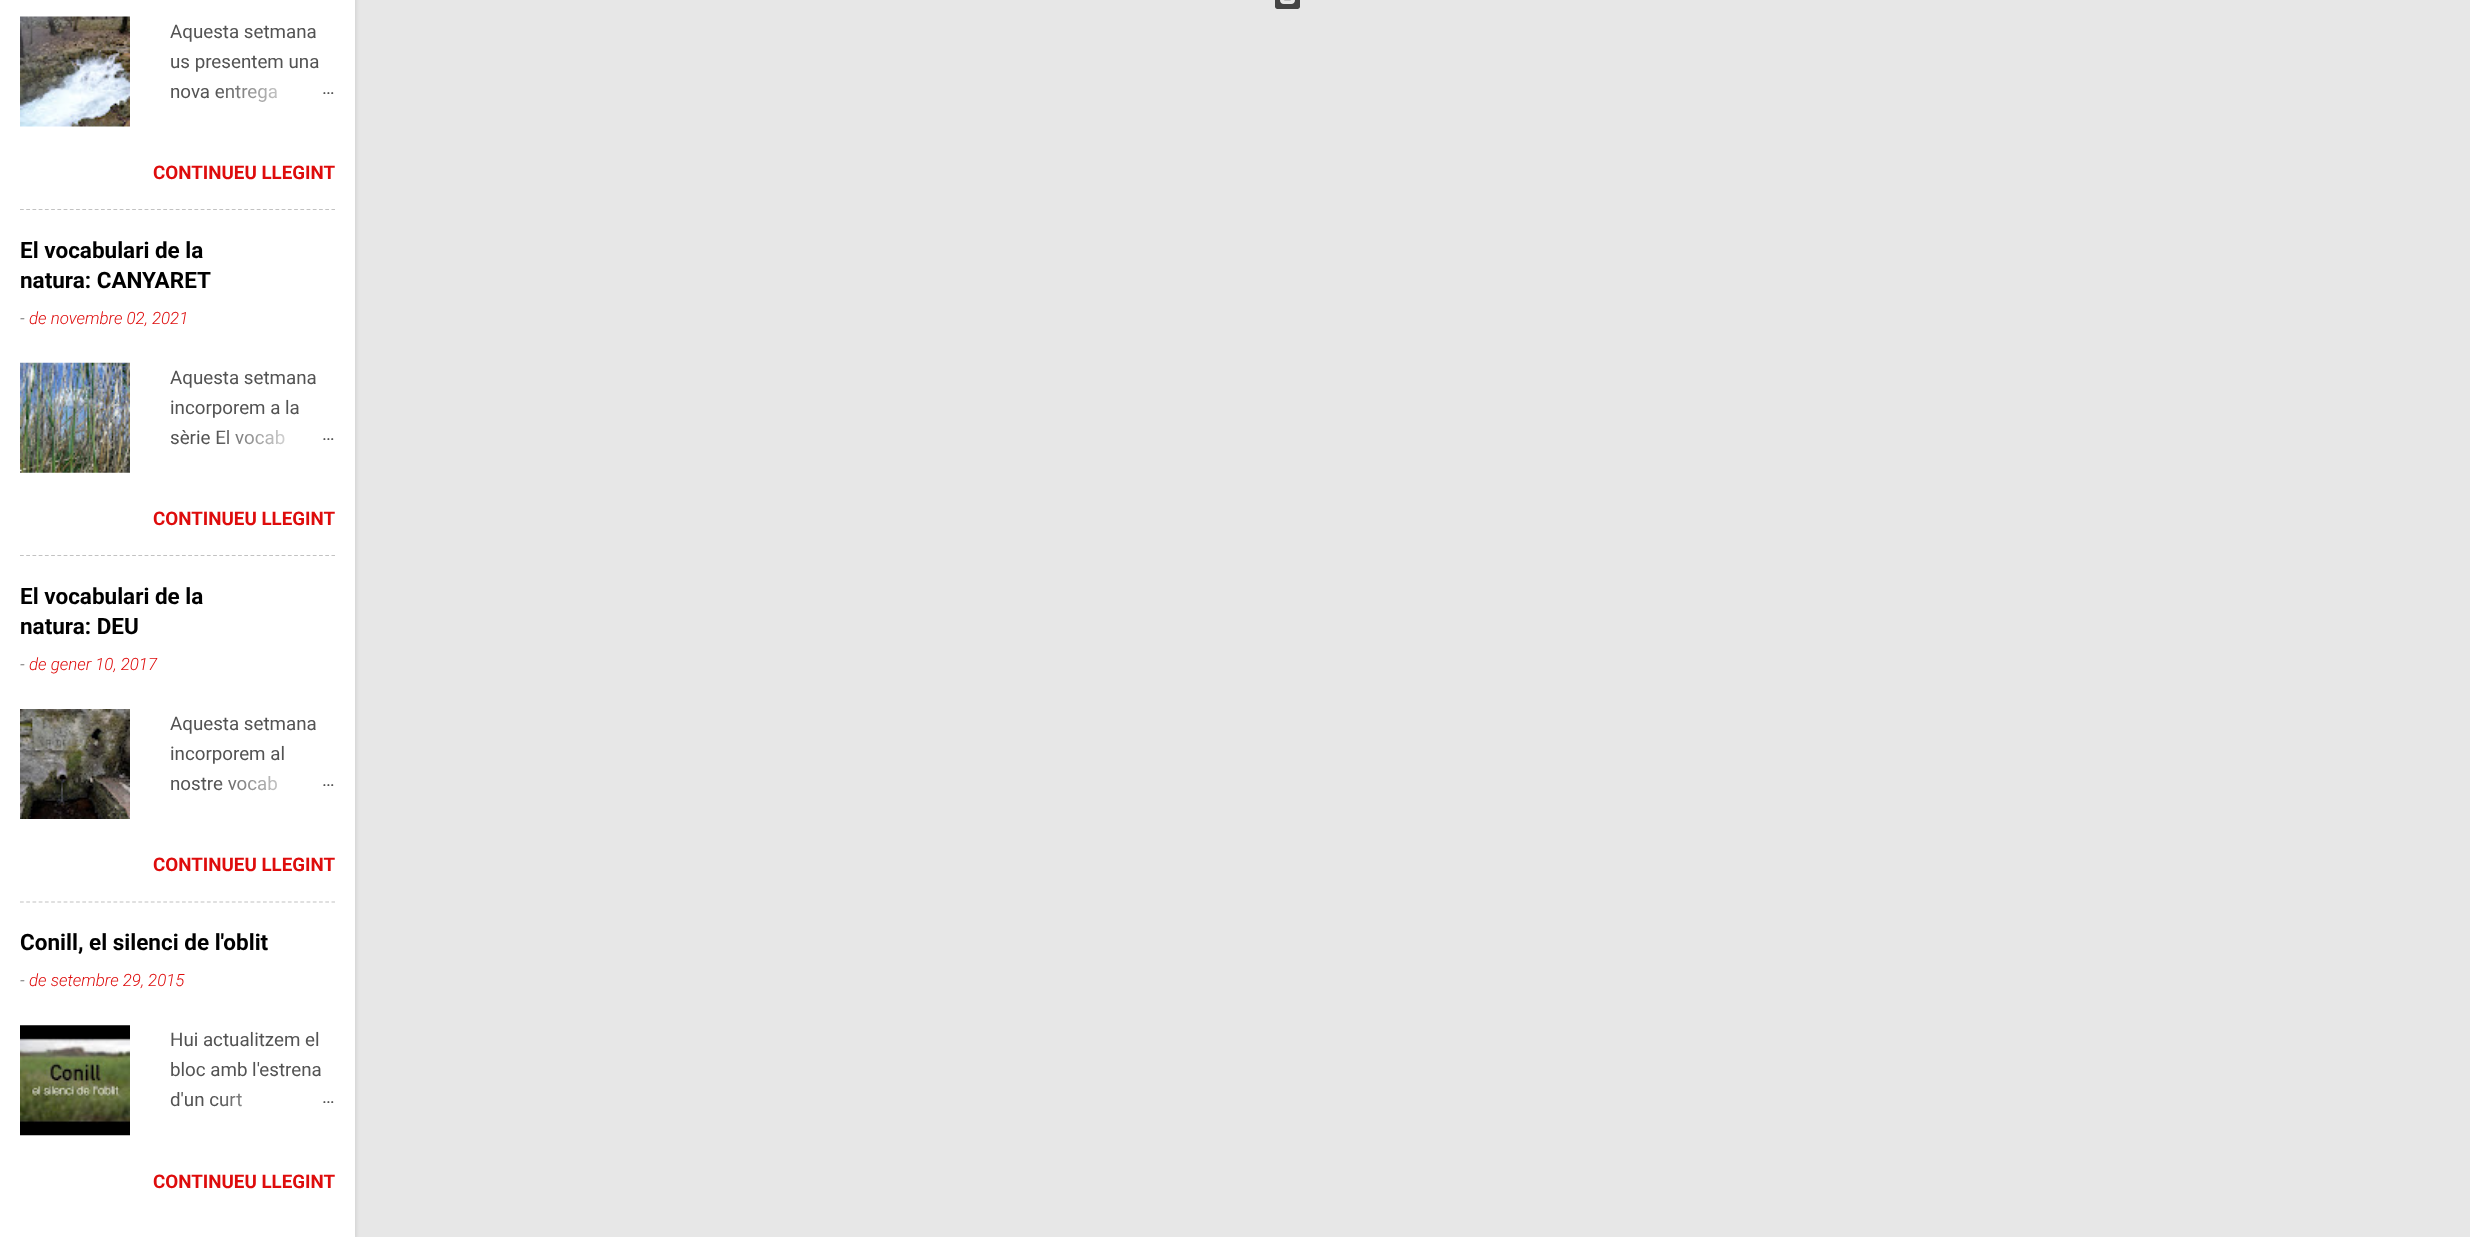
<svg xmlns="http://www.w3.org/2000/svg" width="2470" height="1237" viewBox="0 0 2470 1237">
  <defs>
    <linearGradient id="g1" gradientUnits="userSpaceOnUse" x1="335" y1="91" x2="215" y2="91"><stop offset="0" stop-color="rgb(255,255,255)"/><stop offset="0.2" stop-color="rgb(255,255,255)"/><stop offset="1" stop-color="rgb(255,255,255)" stop-opacity="0"/></linearGradient>
    <linearGradient id="g2" gradientUnits="userSpaceOnUse" x1="335" y1="438" x2="215" y2="438"><stop offset="0" stop-color="rgb(255,255,255)"/><stop offset="0.2" stop-color="rgb(255,255,255)"/><stop offset="1" stop-color="rgb(255,255,255)" stop-opacity="0"/></linearGradient>
    <linearGradient id="g3" gradientUnits="userSpaceOnUse" x1="335" y1="784" x2="215" y2="784"><stop offset="0" stop-color="rgb(255,255,255)"/><stop offset="0.2" stop-color="rgb(255,255,255)"/><stop offset="1" stop-color="rgb(255,255,255)" stop-opacity="0"/></linearGradient>
    <linearGradient id="g4" gradientUnits="userSpaceOnUse" x1="335" y1="1100" x2="215" y2="1100"><stop offset="0" stop-color="rgb(255,255,255)"/><stop offset="0.2" stop-color="rgb(255,255,255)"/><stop offset="1" stop-color="rgb(255,255,255)" stop-opacity="0"/></linearGradient>
  </defs>
  <rect width="100%" height="100%" fill="rgb(231,231,231)"/>
  <image x="1275" y="0" width="25" height="9" href="pic1.png"/>
  <rect x="1" y="-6" width="355" height="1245" fill="rgba(0,0,0,0.1)" filter="blur(2px)"/>
  <rect x="0" y="0" width="355" height="1237" fill="rgb(255,255,255)"/>
  <image x="20" y="16" width="110" height="111" href="pic2.png"/>
  <g font-family="Roboto" font-size="18.75" fill="rgb(83,83,83)">
    <text>
      <tspan x="170" y="38">Aquesta setmana</tspan>
      <tspan x="170" y="68">us presentem una</tspan>
      <tspan x="170" y="98">nova entrega</tspan>
    </text>
  </g>
  <rect x="217" y="85" width="60" height="17" fill="url(#g1)"/>
  <text x="322" y="94" font-family="Roboto" font-size="18.75" fill="rgb(83,83,83)">…</text>
  <text x="153" y="179" font-family="Roboto" font-size="18.75" font-weight="bold" fill="rgb(222,12,12)">CONTINUEU LLEGINT</text>
  <path d="M20 209.5H335" fill="none" stroke="rgb(194,194,194)" stroke-width="1.2" stroke-dasharray="3.75 2.48"/>
  <g font-family="Roboto" font-size="22.5" font-weight="bold" fill="rgb(0,0,0)">
    <text>
      <tspan x="20" y="258">El vocabulari de la</tspan>
      <tspan x="20" y="288">natura: CANYARET</tspan>
    </text>
  </g>
  <text x="20" y="324" font-family="Roboto" font-size="16.9" font-weight="300" font-style="italic" fill="rgb(117,117,117)">-</text>
  <text x="29" y="324" font-family="Roboto" font-size="16.9" font-weight="300" font-style="italic" fill="rgb(222,12,12)">de novembre 02, 2021</text>
  <image x="20" y="362" width="110" height="111" href="pic3.png"/>
  <g font-family="Roboto" font-size="18.75" fill="rgb(83,83,83)">
    <text>
      <tspan x="170" y="384">Aquesta setmana</tspan>
      <tspan x="170" y="414">incorporem a la</tspan>
      <tspan x="170" y="444">sèrie El vocab</tspan>
    </text>
  </g>
  <rect x="217" y="429" width="68" height="16" fill="url(#g2)"/>
  <text x="322" y="440" font-family="Roboto" font-size="18.75" fill="rgb(83,83,83)">…</text>
  <text x="153" y="525" font-family="Roboto" font-size="18.75" font-weight="bold" fill="rgb(222,12,12)">CONTINUEU LLEGINT</text>
  <path d="M20 555.5H335" fill="none" stroke="rgb(194,194,194)" stroke-width="1.2" stroke-dasharray="3.75 2.48"/>
  <g font-family="Roboto" font-size="22.5" font-weight="bold" fill="rgb(0,0,0)">
    <text>
      <tspan x="20" y="604">El vocabulari de la</tspan>
      <tspan x="20" y="634">natura: DEU</tspan>
    </text>
  </g>
  <text x="20" y="670" font-family="Roboto" font-size="16.9" font-weight="300" font-style="italic" fill="rgb(117,117,117)">-</text>
  <text x="29" y="670" font-family="Roboto" font-size="16.9" font-weight="300" font-style="italic" fill="rgb(222,12,12)">de gener 10, 2017</text>
  <image x="20" y="709" width="110" height="110" href="pic4.png"/>
  <g font-family="Roboto" font-size="18.75" fill="rgb(83,83,83)">
    <text>
      <tspan x="170" y="730">Aquesta setmana</tspan>
      <tspan x="170" y="760">incorporem al</tspan>
      <tspan x="170" y="790">nostre vocab</tspan>
    </text>
  </g>
  <rect x="217" y="775" width="60" height="16" fill="url(#g3)"/>
  <text x="322" y="786" font-family="Roboto" font-size="18.75" fill="rgb(83,83,83)">…</text>
  <text x="153" y="871" font-family="Roboto" font-size="18.75" font-weight="bold" fill="rgb(222,12,12)">CONTINUEU LLEGINT</text>
  <path d="M20 902H335" fill="none" stroke="rgb(194,194,194)" stroke-width="1.2" stroke-dasharray="3.75 2.48"/>
  <text x="20" y="950" font-family="Roboto" font-size="22.5" font-weight="bold" fill="rgb(0,0,0)">Conill, el silenci de l'oblit</text>
  <text x="20" y="986" font-family="Roboto" font-size="16.9" font-weight="300" font-style="italic" fill="rgb(117,117,117)">-</text>
  <text x="29" y="986" font-family="Roboto" font-size="16.9" font-weight="300" font-style="italic" fill="rgb(222,12,12)">de setembre 29, 2015</text>
  <image x="20" y="1025" width="110" height="111" href="pic5.png"/>
  <g font-family="Roboto" font-size="18.75" fill="rgb(83,83,83)">
    <text>
      <tspan x="170" y="1046">Hui actualitzem el</tspan>
      <tspan x="170" y="1076">bloc amb l'estrena</tspan>
      <tspan x="170" y="1106">d'un curt</tspan>
    </text>
  </g>
  <rect x="217" y="1093" width="25" height="14" fill="url(#g4)"/>
  <text x="322" y="1103" font-family="Roboto" font-size="18.75" fill="rgb(83,83,83)">…</text>
  <text x="153" y="1188" font-family="Roboto" font-size="18.75" font-weight="bold" fill="rgb(222,12,12)">CONTINUEU LLEGINT</text>
</svg>
